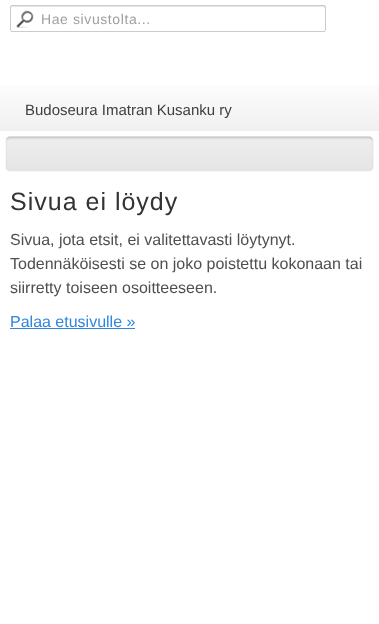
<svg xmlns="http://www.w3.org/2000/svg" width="379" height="624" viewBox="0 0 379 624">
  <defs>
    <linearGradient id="g1" gradientUnits="userSpaceOnUse" x1="190" y1="76" x2="190" y2="195"><stop offset="0" stop-color="rgb(255,255,255)"/><stop offset="1" stop-color="rgb(222,222,222)"/></linearGradient>
  </defs>
  <rect width="100%" height="100%" fill="rgb(255,255,255)"/>
  <image x="16" y="10" width="18" height="18" href="pic1.png"/>
  <path d="M12 7H324L325 9V6H12C11 6 11 7 11 8Z" fill="rgb(230,230,230)"/>
  <rect x="10.5" y="5.5" width="315" height="26" rx="1.5" fill="none" stroke="rgb(204,204,204)"/>
  <text x="41" y="24" font-family="Liberation Sans" font-size="14" letter-spacing="0.6" fill="rgb(159,159,159)">Hae sivustolta...</text>
  <rect x="0" y="85" width="379" height="87" fill="url(#g1)"/>
  <image x="0" y="131" width="379" height="46" href="pic2.png"/>
  <text x="25" y="115" font-family="Liberation Sans" font-size="15" fill="rgb(64,64,64)">Budoseura Imatran Kusanku ry</text>
  <text x="10" y="210" font-family="Liberation Sans" font-size="25" letter-spacing="1" fill="rgb(51,51,51)">Sivua ei löydy</text>
  <g font-family="Liberation Sans" font-size="16" fill="rgb(79,79,79)">
    <text>
      <tspan x="10" y="245">Sivua, jota etsit, ei valitettavasti löytynyt.</tspan>
      <tspan x="10" y="269">Todennäköisesti se on joko poistettu kokonaan tai</tspan>
      <tspan x="10" y="293">siirretty toiseen osoitteeseen.</tspan>
    </text>
  </g>
  <text x="10" y="327" font-family="Liberation Sans" font-size="16" fill="rgb(48,134,223)">Palaa etusivulle »</text>
  <rect x="10" y="328" width="125" height="1" fill="rgb(48,134,223)"/>
</svg>
